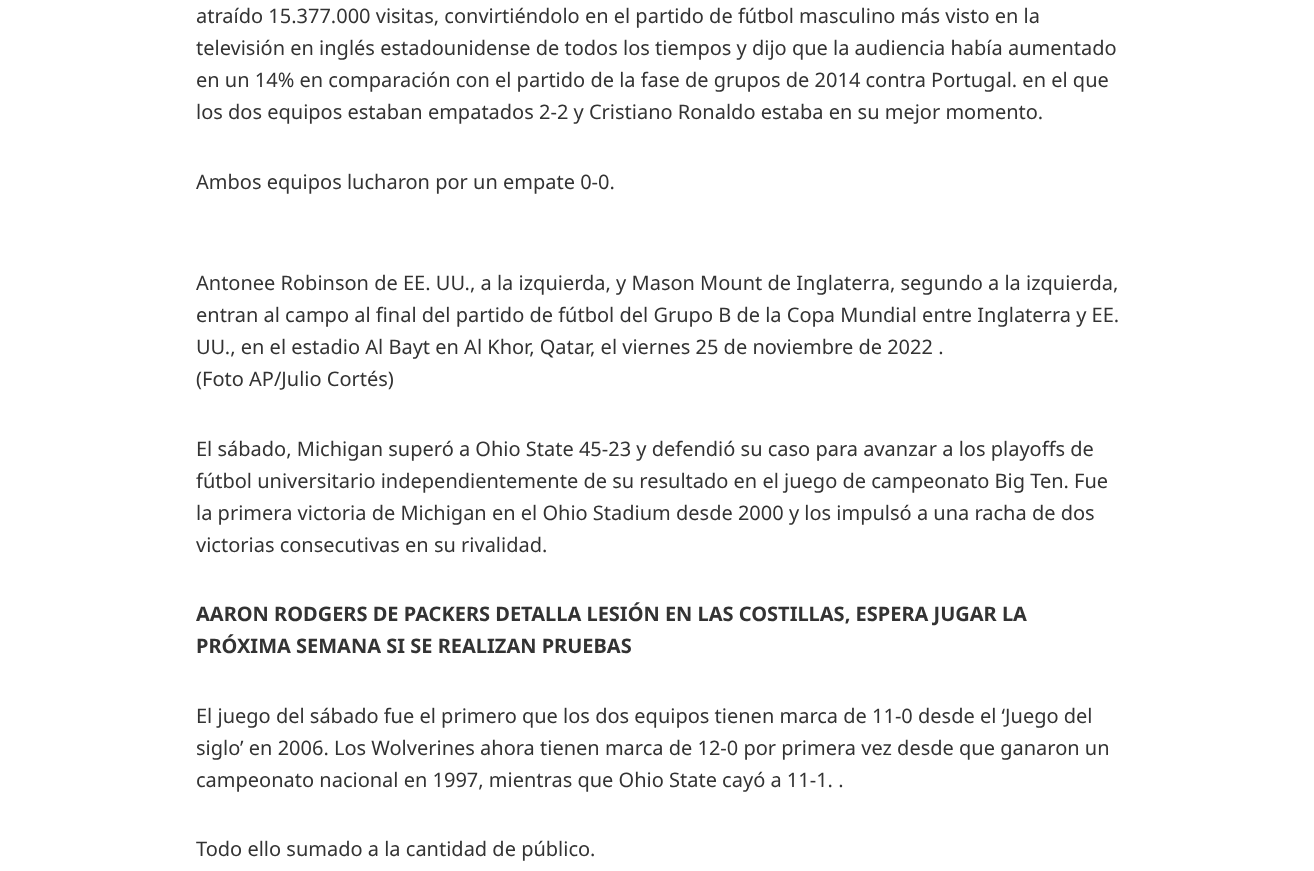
<svg xmlns="http://www.w3.org/2000/svg" width="1314" height="871" viewBox="0 0 1314 871">
  <rect width="100%" height="100%" fill="rgb(255,255,255)"/>
  <g font-family="Noto Sans" font-size="20" fill="rgb(51,51,51)">
    <text>
      <tspan x="196" y="23">atraído 15.377.000 visitas, convirtiéndolo en el partido de fútbol masculino más visto en la</tspan>
      <tspan x="196" y="55">televisión en inglés estadounidense de todos los tiempos y dijo que la audiencia había aumentado</tspan>
      <tspan x="196" y="87">en un 14% en comparación con el partido de la fase de grupos de 2014 contra Portugal. en el que</tspan>
      <tspan x="196" y="119">los dos equipos estaban empatados 2-2 y Cristiano Ronaldo estaba en su mejor momento.</tspan>
    </text>
    <text x="196" y="189">Ambos equipos lucharon por un empate 0-0.</text>
    <text>
      <tspan x="196" y="290">Antonee Robinson de EE. UU., a la izquierda, y Mason Mount de Inglaterra, segundo a la izquierda,</tspan>
      <tspan x="196" y="322">entran al campo al final del partido de fútbol del Grupo B de la Copa Mundial entre Inglaterra y EE.</tspan>
      <tspan x="196" y="354">UU., en el estadio Al Bayt en Al Khor, Qatar, el viernes 25 de noviembre de 2022 .</tspan>
      <tspan x="196" y="386">(Foto AP/Julio Cortés)</tspan>
    </text>
    <text>
      <tspan x="196" y="456">El sábado, Michigan superó a Ohio State 45-23 y defendió su caso para avanzar a los playoffs de</tspan>
      <tspan x="196" y="488">fútbol universitario independientemente de su resultado en el juego de campeonato Big Ten. Fue</tspan>
      <tspan x="196" y="520">la primera victoria de Michigan en el Ohio Stadium desde 2000 y los impulsó a una racha de dos</tspan>
      <tspan x="196" y="552">victorias consecutivas en su rivalidad.</tspan>
    </text>
  </g>
  <g font-family="Noto Sans" font-size="20" font-weight="bold" fill="rgb(51,51,51)">
    <text>
      <tspan x="196" y="621">AARON RODGERS DE PACKERS DETALLA LESIÓN EN LAS COSTILLAS, ESPERA JUGAR LA</tspan>
      <tspan x="196" y="653">PRÓXIMA SEMANA SI SE REALIZAN PRUEBAS</tspan>
    </text>
  </g>
  <g font-family="Noto Sans" font-size="20" fill="rgb(51,51,51)">
    <text>
      <tspan x="196" y="723">El juego del sábado fue el primero que los dos equipos tienen marca de 11-0 desde el ‘Juego del</tspan>
      <tspan x="196" y="755">siglo’ en 2006. Los Wolverines ahora tienen marca de 12-0 por primera vez desde que ganaron un</tspan>
      <tspan x="196" y="787">campeonato nacional en 1997, mientras que Ohio State cayó a 11-1. .</tspan>
    </text>
    <text x="196" y="856">Todo ello sumado a la cantidad de público.</text>
  </g>
</svg>
